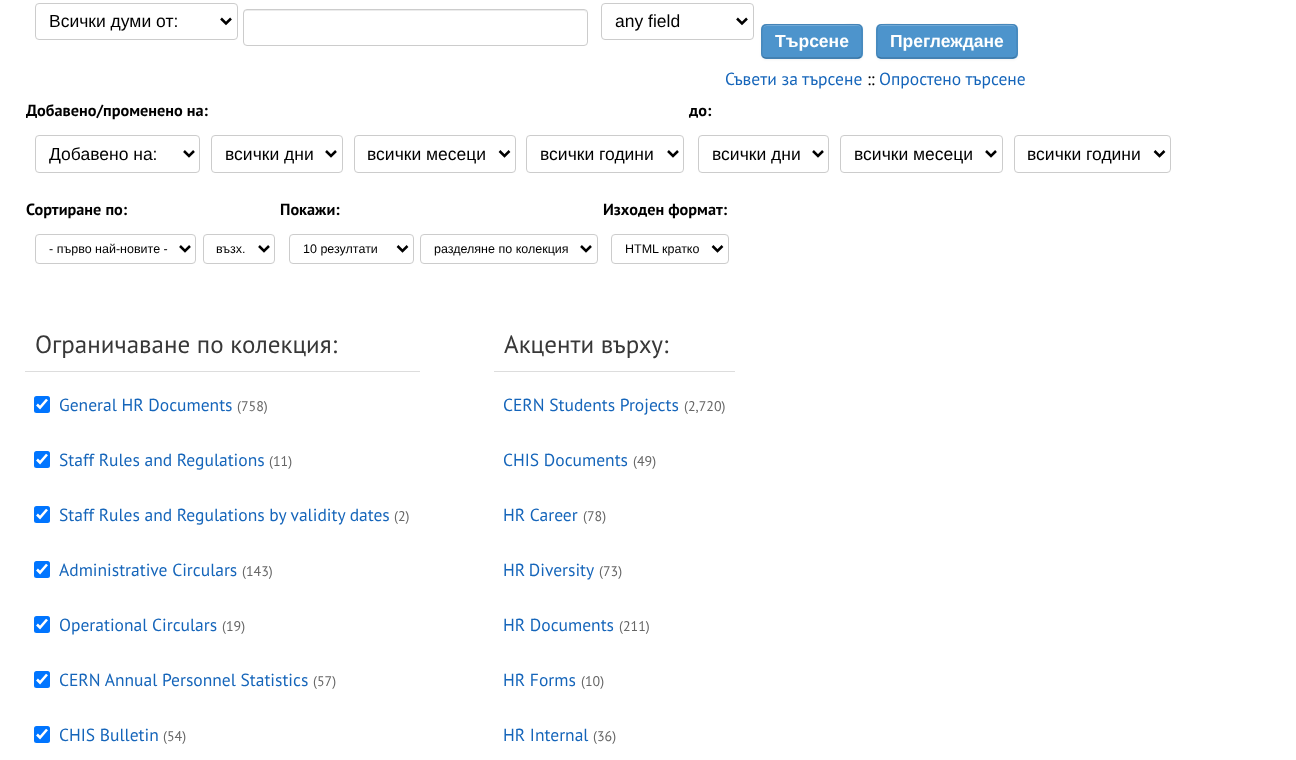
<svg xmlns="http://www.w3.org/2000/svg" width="1296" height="760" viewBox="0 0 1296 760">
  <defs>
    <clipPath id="clip1"><rect x="49" y="143" width="122" height="22"/></clipPath>
  </defs>
  <rect width="100%" height="100%" fill="rgb(255,255,255)"/>
  <rect x="35.5" y="3.5" width="202" height="36" rx="3.5" fill="none" stroke="rgb(204,204,204)"/>
  <path d="M221 18.5L226 23.5L231 18.5" fill="none" stroke="rgb(0,0,0)" stroke-width="2.5"/>
  <text x="49" y="27" font-family="Liberation Sans" font-size="17.5" fill="rgb(0,0,0)">Всички думи от:</text>
  <path d="M246 11H584C585 11 586 12 586 14C586 12 586 10 584 10H246L244 11V14C244 12 245 11 246 11Z" fill="rgb(236,236,236)"/>
  <rect x="243.5" y="9.5" width="344" height="36" rx="3.5" fill="none" stroke="rgb(204,204,204)"/>
  <rect x="601.5" y="3.5" width="152" height="36" rx="3.5" fill="none" stroke="rgb(204,204,204)"/>
  <path d="M737 18.5L742 23.5L747 18.5" fill="none" stroke="rgb(0,0,0)" stroke-width="2.5"/>
  <text x="615" y="27" font-family="Liberation Sans" font-size="17.5" fill="rgb(0,0,0)">any field</text>
  <rect x="761" y="25" width="102" height="35" rx="5" fill="rgba(0,0,0,0.05)" filter="blur(1px)"/>
  <rect x="761" y="24" width="102" height="35" rx="5" fill="rgb(77,148,204)"/>
  <path d="M766 26H858C860 26 861 28 861 30V29C861 27 859 25 857 25H767C766 25 764 26 764 27Z" fill="rgb(113,169,214)"/>
  <path d="M860.5 57C860 57.5 858.5 58 857.5 58H766C765 58 764 57.5 763 57" fill="none" stroke="rgba(0,0,0,0.25)" stroke-width="1.2"/>
  <path d="M763 57C760.5 54 762 48.5 762 45.5C762 22 757.5 24.5 781.5 24.5H842.5C864 24.5 862 21 862 41C862 44.5 863 54.5 860.5 57" fill="none" stroke="rgba(0,0,0,0.1)" stroke-width="1.2"/>
  <text x="775" y="47" font-family="Liberation Sans" font-size="17.5" font-weight="bold" fill="rgb(255,255,255)">Търсене</text>
  <rect x="876" y="25" width="142" height="35" rx="5" fill="rgba(0,0,0,0.05)" filter="blur(1px)"/>
  <rect x="876" y="24" width="142" height="35" rx="5" fill="rgb(77,148,204)"/>
  <path d="M881 26H1012C1015 26 1016 28 1016 30V29C1016 27 1014 25 1012 25H882C880 25 878 27 878 29V30C878 28 879 26 881 26Z" fill="rgb(113,169,214)"/>
  <path d="M1015.5 57L1012.5 58H881L878 57" fill="none" stroke="rgb(58,111,153)" stroke-width="1.2"/>
  <path d="M878 57C875.5 54 877 48.5 877 45.5C877 19 873.5 24.5 903 24.5H990.5C1020.5 24.5 1017 19 1017 45.5C1017 48.5 1018.5 54 1015.5 57" fill="none" stroke="rgba(0,0,0,0.1)" stroke-width="1.2"/>
  <text x="890" y="47" font-family="Liberation Sans" font-size="17.5" font-weight="bold" fill="rgb(255,255,255)">Преглеждане</text>
  <text x="725" y="85" font-family="PT Sans" font-size="17.5" fill="rgb(21,101,186)">Съвети за търсене</text>
  <text x="867" y="85" font-family="PT Sans" font-size="17.5" fill="rgb(0,0,0)">::</text>
  <text x="879" y="85" font-family="PT Sans" font-size="17.5" fill="rgb(21,101,186)">Опростено търсене</text>
  <g font-family="PT Sans" font-size="16.25" font-weight="bold" fill="rgb(0,0,0)">
    <text x="26" y="116">Добавено/променено на:</text>
    <text x="689" y="116">до:</text>
  </g>
  <rect x="35.5" y="135.5" width="164" height="37" rx="3.5" fill="none" stroke="rgb(204,204,204)"/>
  <path d="M184 151L189 156L194 151" fill="none" stroke="rgb(0,0,0)" stroke-width="2.5"/>
  <g clip-path="url(#clip1)">
    <text x="49" y="160" font-family="Liberation Sans" font-size="17.5" fill="rgb(0,0,0)">Добавено на:</text>
  </g>
  <rect x="211.5" y="135.5" width="131" height="37" rx="3.5" fill="none" stroke="rgb(204,204,204)"/>
  <path d="M326 151L331 156L336 151" fill="none" stroke="rgb(0,0,0)" stroke-width="2.5"/>
  <text x="225" y="160" font-family="Liberation Sans" font-size="17.5" fill="rgb(0,0,0)">всички дни</text>
  <rect x="354.5" y="135.5" width="161" height="37" rx="3.5" fill="none" stroke="rgb(204,204,204)"/>
  <path d="M499.5 151L504.5 156L509.5 151" fill="none" stroke="rgb(0,0,0)" stroke-width="2.5"/>
  <text x="367" y="160" font-family="Liberation Sans" font-size="17.5" fill="rgb(0,0,0)">всички месеци</text>
  <rect x="526.5" y="135.5" width="157" height="37" rx="3.5" fill="none" stroke="rgb(204,204,204)"/>
  <path d="M668 151L673 156L678 151" fill="none" stroke="rgb(0,0,0)" stroke-width="2.5"/>
  <text x="540" y="160" font-family="Liberation Sans" font-size="17.5" fill="rgb(0,0,0)">всички години</text>
  <rect x="698.5" y="135.5" width="130" height="37" rx="3.5" fill="none" stroke="rgb(204,204,204)"/>
  <path d="M813 151L818 156L823 151" fill="none" stroke="rgb(0,0,0)" stroke-width="2.5"/>
  <text x="712" y="160" font-family="Liberation Sans" font-size="17.5" fill="rgb(0,0,0)">всички дни</text>
  <rect x="840.5" y="135.5" width="162" height="37" rx="3.5" fill="none" stroke="rgb(204,204,204)"/>
  <path d="M986 151L991 156L996 151" fill="none" stroke="rgb(0,0,0)" stroke-width="2.5"/>
  <text x="854" y="160" font-family="Liberation Sans" font-size="17.5" fill="rgb(0,0,0)">всички месеци</text>
  <rect x="1014.5" y="135.5" width="156" height="37" rx="3.5" fill="none" stroke="rgb(204,204,204)"/>
  <path d="M1154.5 151L1159.5 156L1164.5 151" fill="none" stroke="rgb(0,0,0)" stroke-width="2.5"/>
  <text x="1027" y="160" font-family="Liberation Sans" font-size="17.5" fill="rgb(0,0,0)">всички години</text>
  <g font-family="PT Sans" font-size="16.25" font-weight="bold" fill="rgb(0,0,0)">
    <text x="26" y="215">Сортиране по:</text>
    <text x="280" y="215">Покажи:</text>
    <text x="603" y="215">Изходен формат:</text>
  </g>
  <rect x="35.5" y="234.5" width="160" height="29" rx="3.5" fill="none" stroke="rgb(204,204,204)"/>
  <path d="M180 246L185 251L190 246" fill="none" stroke="rgb(0,0,0)" stroke-width="2.5"/>
  <text x="49" y="253" font-family="Liberation Sans" font-size="12.5" fill="rgb(0,0,0)">- първо най-новите -</text>
  <rect x="203.5" y="234.5" width="71" height="29" rx="3.5" fill="none" stroke="rgb(204,204,204)"/>
  <path d="M259 246L264 251L269 246" fill="none" stroke="rgb(0,0,0)" stroke-width="2.5"/>
  <text x="216" y="253" font-family="Liberation Sans" font-size="12.5" fill="rgb(0,0,0)">възх.</text>
  <rect x="289.5" y="234.5" width="124" height="29" rx="3.5" fill="none" stroke="rgb(204,204,204)"/>
  <path d="M397.5 246L402.5 251L407.5 246" fill="none" stroke="rgb(0,0,0)" stroke-width="2.5"/>
  <text x="303" y="253" font-family="Liberation Sans" font-size="12.5" fill="rgb(0,0,0)">10 резултати</text>
  <rect x="420.5" y="234.5" width="177" height="29" rx="3.5" fill="none" stroke="rgb(204,204,204)"/>
  <path d="M581 246L586 251L591 246" fill="none" stroke="rgb(0,0,0)" stroke-width="2.5"/>
  <text x="434" y="253" font-family="Liberation Sans" font-size="12.5" fill="rgb(0,0,0)">разделяне по колекция</text>
  <rect x="611.5" y="234.5" width="117" height="29" rx="3.5" fill="none" stroke="rgb(204,204,204)"/>
  <path d="M712.5 246L717.5 251L722.5 246" fill="none" stroke="rgb(0,0,0)" stroke-width="2.5"/>
  <text x="625" y="253" font-family="Liberation Sans" font-size="12.5" fill="rgb(0,0,0)">HTML кратко</text>
  <rect x="25" y="371" width="395" height="1" fill="rgb(221,221,221)"/>
  <text x="35" y="353" font-family="PT Sans" font-size="25" fill="rgb(56,56,56)">Ограничаване по колекция:</text>
  <rect x="34" y="396" width="16" height="17" rx="2.5" fill="rgb(0,117,255)"/>
  <path d="M37 404.5L40 407.5L47 399.5" fill="none" stroke="rgb(255,255,255)" stroke-width="2.6"/>
  <text x="59" y="411" font-family="PT Sans" font-size="17.5" fill="rgb(21,101,186)">General HR Documents</text>
  <text x="237" y="411" font-family="PT Sans" font-size="14" fill="rgb(102,102,102)">(758)</text>
  <rect x="34" y="451" width="16" height="17" rx="2.5" fill="rgb(0,117,255)"/>
  <path d="M37 459.5L40 462.5L47 454.5" fill="none" stroke="rgb(255,255,255)" stroke-width="2.6"/>
  <text x="59" y="466" font-family="PT Sans" font-size="17.5" fill="rgb(21,101,186)">Staff Rules and Regulations</text>
  <text x="269" y="466" font-family="PT Sans" font-size="14" fill="rgb(102,102,102)">(11)</text>
  <rect x="34" y="506" width="16" height="17" rx="2.5" fill="rgb(0,117,255)"/>
  <path d="M37 514.5L40 517.5L47 509.5" fill="none" stroke="rgb(255,255,255)" stroke-width="2.6"/>
  <text x="59" y="521" font-family="PT Sans" font-size="17.5" fill="rgb(21,101,186)">Staff Rules and Regulations by validity dates</text>
  <text x="394" y="521" font-family="PT Sans" font-size="14" fill="rgb(102,102,102)">(2)</text>
  <rect x="34" y="561" width="16" height="17" rx="2.5" fill="rgb(0,117,255)"/>
  <path d="M37 569.5L40 572.5L47 564.5" fill="none" stroke="rgb(255,255,255)" stroke-width="2.6"/>
  <text x="59" y="576" font-family="PT Sans" font-size="17.5" fill="rgb(21,101,186)">Administrative Circulars</text>
  <text x="242" y="576" font-family="PT Sans" font-size="14" fill="rgb(102,102,102)">(143)</text>
  <rect x="34" y="616" width="16" height="17" rx="2.5" fill="rgb(0,117,255)"/>
  <path d="M37 624.5L40 627.5L47 619.5" fill="none" stroke="rgb(255,255,255)" stroke-width="2.6"/>
  <text x="59" y="631" font-family="PT Sans" font-size="17.5" fill="rgb(21,101,186)">Operational Circulars</text>
  <text x="222" y="631" font-family="PT Sans" font-size="14" fill="rgb(102,102,102)">(19)</text>
  <rect x="34" y="671" width="16" height="17" rx="2.5" fill="rgb(0,117,255)"/>
  <path d="M37 679.5L40 682.5L47 674.5" fill="none" stroke="rgb(255,255,255)" stroke-width="2.6"/>
  <text x="59" y="686" font-family="PT Sans" font-size="17.5" fill="rgb(21,101,186)">CERN Annual Personnel Statistics</text>
  <text x="313" y="686" font-family="PT Sans" font-size="14" fill="rgb(102,102,102)">(57)</text>
  <rect x="34" y="726" width="16" height="17" rx="2.5" fill="rgb(0,117,255)"/>
  <path d="M37 734.5L40 737.5L47 729.5" fill="none" stroke="rgb(255,255,255)" stroke-width="2.6"/>
  <text x="59" y="741" font-family="PT Sans" font-size="17.5" fill="rgb(21,101,186)">CHIS Bulletin</text>
  <text x="163" y="741" font-family="PT Sans" font-size="14" fill="rgb(102,102,102)">(54)</text>
  <rect x="494" y="371" width="241" height="1" fill="rgb(221,221,221)"/>
  <text x="504" y="353" font-family="PT Sans" font-size="25" fill="rgb(56,56,56)">Акценти върху:</text>
  <text x="503" y="411" font-family="PT Sans" font-size="17.5" fill="rgb(21,101,186)">CERN Students Projects</text>
  <text x="684" y="411" font-family="PT Sans" font-size="14" fill="rgb(102,102,102)">(2,720)</text>
  <text x="503" y="466" font-family="PT Sans" font-size="17.5" fill="rgb(21,101,186)">CHIS Documents</text>
  <text x="633" y="466" font-family="PT Sans" font-size="14" fill="rgb(102,102,102)">(49)</text>
  <text x="503" y="521" font-family="PT Sans" font-size="17.5" fill="rgb(21,101,186)">HR Career</text>
  <text x="583" y="521" font-family="PT Sans" font-size="14" fill="rgb(102,102,102)">(78)</text>
  <text x="503" y="576" word-spacing="-1" font-family="PT Sans" font-size="17.5" fill="rgb(21,101,186)">HR Diversity</text>
  <text x="599" y="576" font-family="PT Sans" font-size="14" fill="rgb(102,102,102)">(73)</text>
  <text x="503" y="631" font-family="PT Sans" font-size="17.5" fill="rgb(21,101,186)">HR Documents</text>
  <text x="619" y="631" font-family="PT Sans" font-size="14" fill="rgb(102,102,102)">(211)</text>
  <text x="503" y="686" font-family="PT Sans" font-size="17.5" fill="rgb(21,101,186)">HR Forms</text>
  <text x="581" y="686" font-family="PT Sans" font-size="14" fill="rgb(102,102,102)">(10)</text>
  <text x="503" y="741" font-family="PT Sans" font-size="17.5" fill="rgb(21,101,186)">HR Internal</text>
  <text x="593" y="741" font-family="PT Sans" font-size="14" fill="rgb(102,102,102)">(36)</text>
</svg>
